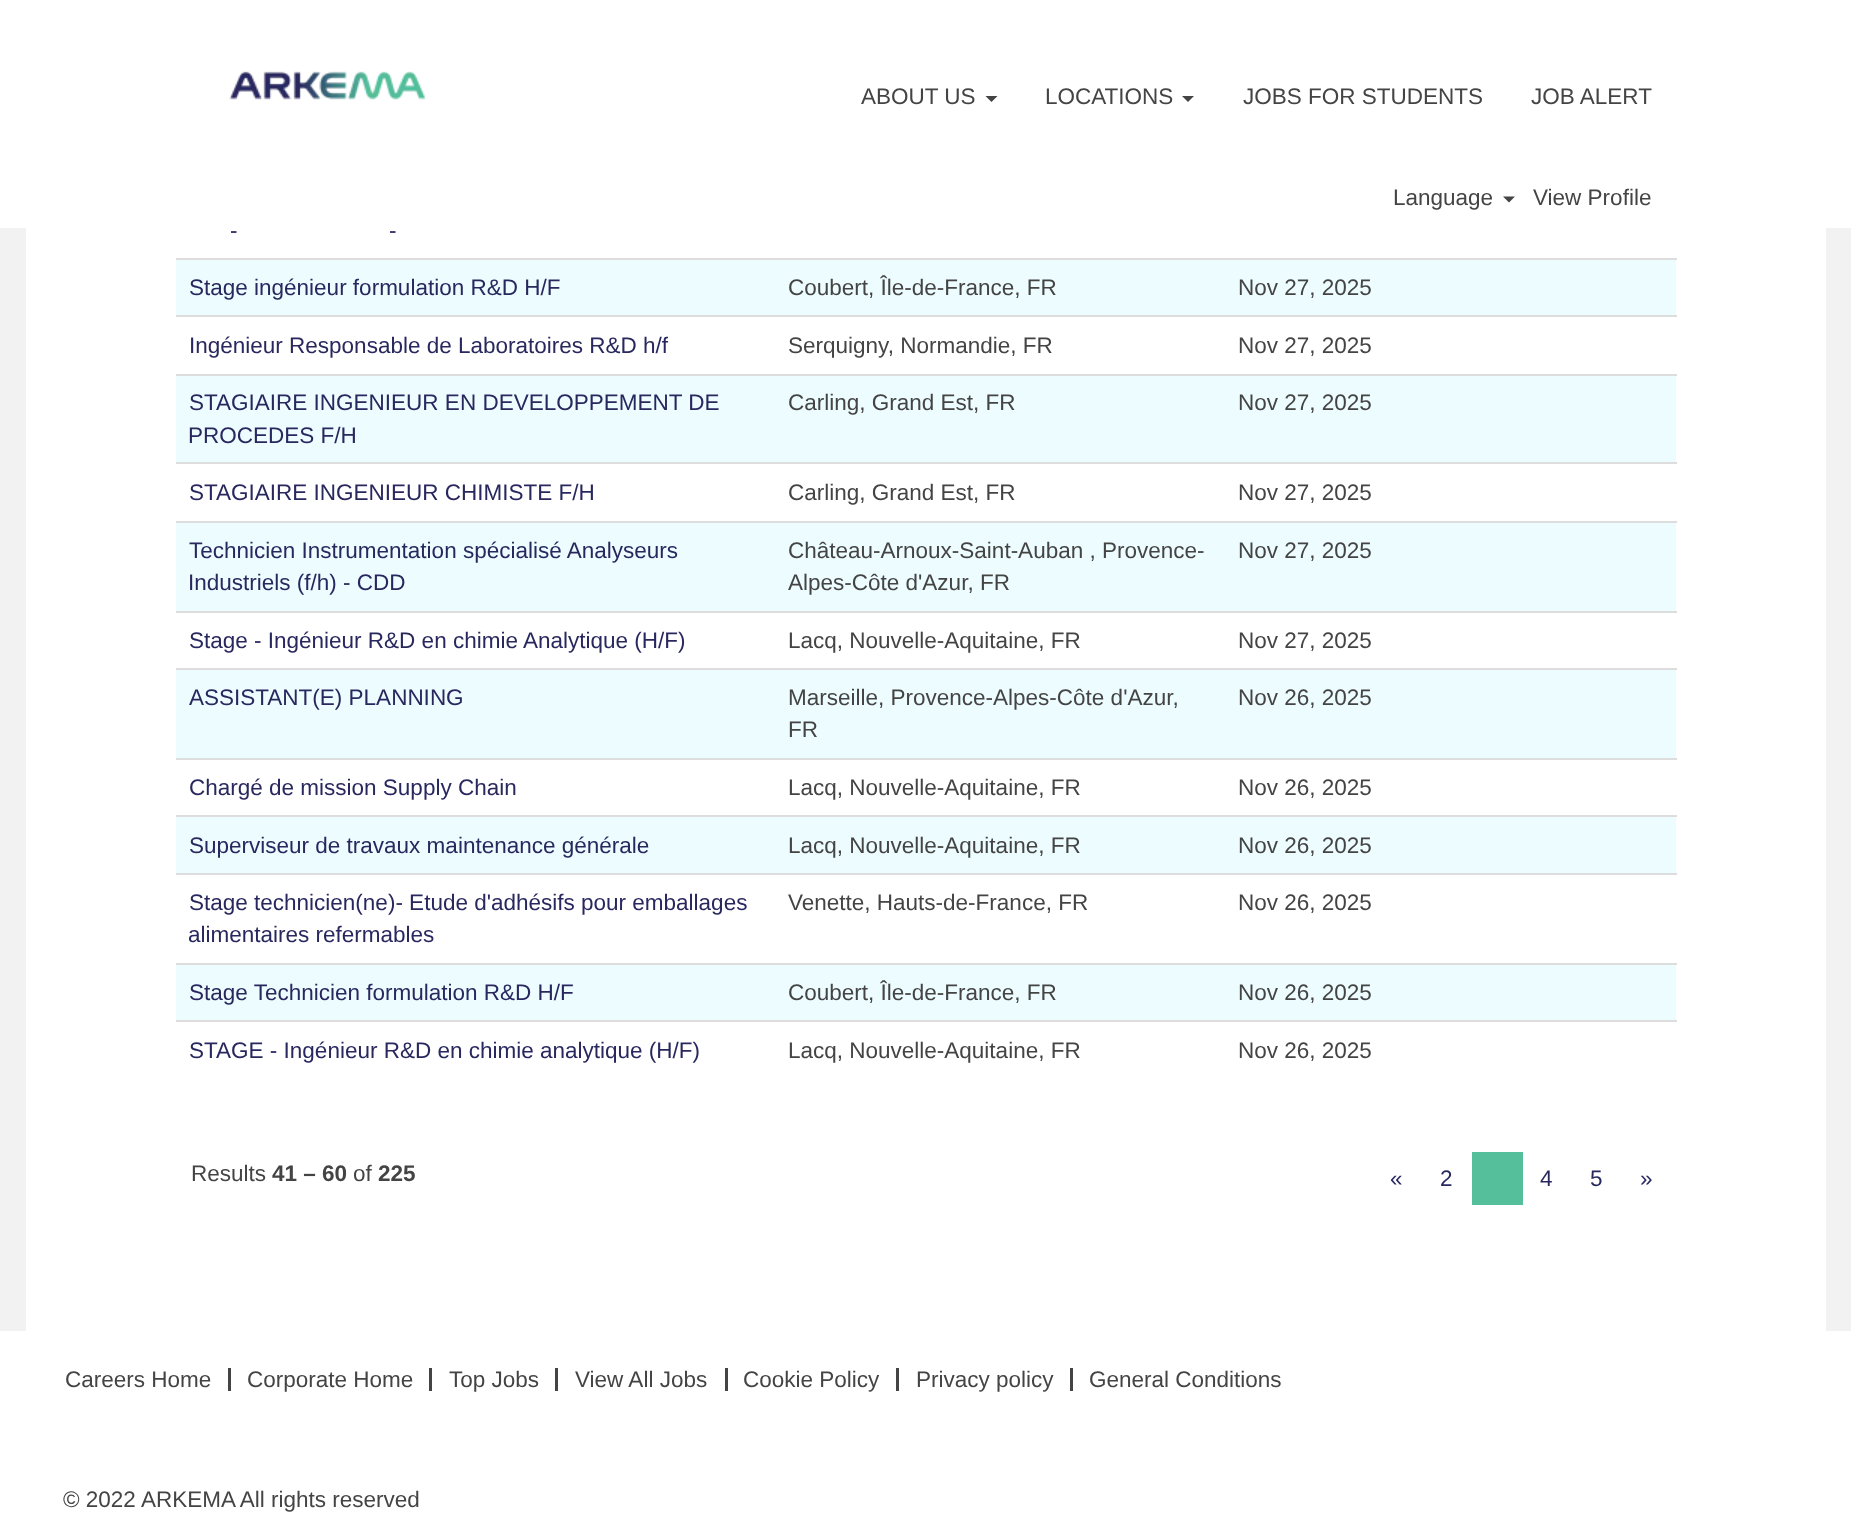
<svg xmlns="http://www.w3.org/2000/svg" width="1851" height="1540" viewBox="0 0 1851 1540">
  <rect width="100%" height="100%" fill="rgb(242,242,242)"/>
  <rect x="0" y="0" width="1851" height="228" fill="rgb(255,255,255)"/>
  <image x="229" y="71" width="197" height="29" href="pic1.png"/>
  <text x="861" y="104" font-family="Liberation Sans" font-size="22.5" fill="rgb(68,68,68)">ABOUT US</text>
  <path d="M985.5 96H997.5L991.5 102Z" fill="rgb(68,68,68)"/>
  <text x="1045" y="104" font-family="Liberation Sans" font-size="22.5" fill="rgb(68,68,68)">LOCATIONS</text>
  <path d="M1182 96H1194L1188 102Z" fill="rgb(68,68,68)"/>
  <g font-family="Liberation Sans" font-size="22.5" fill="rgb(68,68,68)">
    <text x="1243" y="104">JOBS FOR STUDENTS</text>
    <text x="1531" y="104">JOB ALERT</text>
    <text x="1393" y="205">Language</text>
  </g>
  <path d="M1503 196.5H1515L1509 202.5Z" fill="rgb(68,68,68)"/>
  <text x="1533" y="205" font-family="Liberation Sans" font-size="22.5" fill="rgb(68,68,68)">View Profile</text>
  <rect x="26" y="228" width="1800" height="1103" fill="rgb(255,255,255)"/>
  <g font-family="Liberation Sans" font-size="22.5" fill="rgb(40,40,95)">
    <text x="230" y="238">-</text>
    <text x="389" y="238">-</text>
  </g>
  <rect x="176" y="260" width="1500" height="55" fill="rgb(237,252,255)"/>
  <rect x="176" y="258" width="1501" height="2" fill="rgb(221,221,221)"/>
  <text x="189" y="295" font-family="Liberation Sans" font-size="22.5" fill="rgb(40,40,95)">Stage ingénieur formulation R&amp;D H/F</text>
  <g font-family="Liberation Sans" font-size="22.5" fill="rgb(68,68,68)">
    <text x="788" y="295">Coubert, Île-de-France, FR</text>
    <text x="1238" y="295">Nov 27, 2025</text>
  </g>
  <rect x="176" y="315" width="1501" height="2" fill="rgb(221,221,221)"/>
  <text x="189" y="353" font-family="Liberation Sans" font-size="22.5" fill="rgb(40,40,95)">Ingénieur Responsable de Laboratoires R&amp;D h/f</text>
  <g font-family="Liberation Sans" font-size="22.5" fill="rgb(68,68,68)">
    <text x="788" y="353">Serquigny, Normandie, FR</text>
    <text x="1238" y="353">Nov 27, 2025</text>
  </g>
  <rect x="176" y="376" width="1500" height="86" fill="rgb(237,252,255)"/>
  <rect x="176" y="374" width="1501" height="2" fill="rgb(221,221,221)"/>
  <g font-family="Liberation Sans" font-size="22.5" fill="rgb(40,40,95)">
    <text x="189" y="410">STAGIAIRE INGENIEUR EN DEVELOPPEMENT DE</text>
    <text x="188" y="443">PROCEDES F/H</text>
  </g>
  <g font-family="Liberation Sans" font-size="22.5" fill="rgb(68,68,68)">
    <text x="788" y="410">Carling, Grand Est, FR</text>
    <text x="1238" y="410">Nov 27, 2025</text>
  </g>
  <rect x="176" y="462" width="1501" height="2" fill="rgb(221,221,221)"/>
  <text x="189" y="500" font-family="Liberation Sans" font-size="22.5" fill="rgb(40,40,95)">STAGIAIRE INGENIEUR CHIMISTE F/H</text>
  <g font-family="Liberation Sans" font-size="22.5" fill="rgb(68,68,68)">
    <text x="788" y="500">Carling, Grand Est, FR</text>
    <text x="1238" y="500">Nov 27, 2025</text>
  </g>
  <rect x="176" y="523" width="1500" height="88" fill="rgb(237,252,255)"/>
  <rect x="176" y="521" width="1501" height="2" fill="rgb(221,221,221)"/>
  <g font-family="Liberation Sans" font-size="22.5" fill="rgb(40,40,95)">
    <text x="189" y="558">Technicien Instrumentation spécialisé Analyseurs</text>
    <text x="188" y="590">Industriels (f/h) - CDD</text>
  </g>
  <g font-family="Liberation Sans" font-size="22.5" fill="rgb(68,68,68)">
    <text>
      <tspan x="788" y="558">Château-Arnoux-Saint-Auban , Provence-</tspan>
      <tspan x="788" y="590">Alpes-Côte d'Azur, FR</tspan>
    </text>
    <text x="1238" y="558">Nov 27, 2025</text>
  </g>
  <rect x="176" y="611" width="1501" height="2" fill="rgb(221,221,221)"/>
  <text x="189" y="648" font-family="Liberation Sans" font-size="22.5" fill="rgb(40,40,95)">Stage - Ingénieur R&amp;D en chimie Analytique (H/F)</text>
  <g font-family="Liberation Sans" font-size="22.5" fill="rgb(68,68,68)">
    <text x="788" y="648">Lacq, Nouvelle-Aquitaine, FR</text>
    <text x="1238" y="648">Nov 27, 2025</text>
  </g>
  <rect x="176" y="670" width="1500" height="88" fill="rgb(237,252,255)"/>
  <rect x="176" y="668" width="1501" height="2" fill="rgb(221,221,221)"/>
  <text x="189" y="705" font-family="Liberation Sans" font-size="22.5" fill="rgb(40,40,95)">ASSISTANT(E) PLANNING</text>
  <g font-family="Liberation Sans" font-size="22.5" fill="rgb(68,68,68)">
    <text>
      <tspan x="788" y="705">Marseille, Provence-Alpes-Côte d'Azur,</tspan>
      <tspan x="788" y="737">FR</tspan>
    </text>
    <text x="1238" y="705">Nov 26, 2025</text>
  </g>
  <rect x="176" y="758" width="1501" height="2" fill="rgb(221,221,221)"/>
  <text x="189" y="795" font-family="Liberation Sans" font-size="22.5" fill="rgb(40,40,95)">Chargé de mission Supply Chain</text>
  <g font-family="Liberation Sans" font-size="22.5" fill="rgb(68,68,68)">
    <text x="788" y="795">Lacq, Nouvelle-Aquitaine, FR</text>
    <text x="1238" y="795">Nov 26, 2025</text>
  </g>
  <rect x="176" y="817" width="1500" height="56" fill="rgb(237,252,255)"/>
  <rect x="176" y="815" width="1501" height="2" fill="rgb(221,221,221)"/>
  <text x="189" y="853" font-family="Liberation Sans" font-size="22.5" fill="rgb(40,40,95)">Superviseur de travaux maintenance générale</text>
  <g font-family="Liberation Sans" font-size="22.5" fill="rgb(68,68,68)">
    <text x="788" y="853">Lacq, Nouvelle-Aquitaine, FR</text>
    <text x="1238" y="853">Nov 26, 2025</text>
  </g>
  <rect x="176" y="873" width="1501" height="2" fill="rgb(221,221,221)"/>
  <g font-family="Liberation Sans" font-size="22.5" fill="rgb(40,40,95)">
    <text x="189" y="910">Stage technicien(ne)- Etude d'adhésifs pour emballages</text>
    <text x="188" y="942">alimentaires refermables</text>
  </g>
  <g font-family="Liberation Sans" font-size="22.5" fill="rgb(68,68,68)">
    <text x="788" y="910">Venette, Hauts-de-France, FR</text>
    <text x="1238" y="910">Nov 26, 2025</text>
  </g>
  <rect x="176" y="965" width="1500" height="55" fill="rgb(237,252,255)"/>
  <rect x="176" y="963" width="1501" height="2" fill="rgb(221,221,221)"/>
  <text x="189" y="1000" font-family="Liberation Sans" font-size="22.5" fill="rgb(40,40,95)">Stage Technicien formulation R&amp;D H/F</text>
  <g font-family="Liberation Sans" font-size="22.5" fill="rgb(68,68,68)">
    <text x="788" y="1000">Coubert, Île-de-France, FR</text>
    <text x="1238" y="1000">Nov 26, 2025</text>
  </g>
  <rect x="176" y="1020" width="1501" height="2" fill="rgb(221,221,221)"/>
  <text x="189" y="1058" font-family="Liberation Sans" font-size="22.5" fill="rgb(40,40,95)">STAGE - Ingénieur R&amp;D en chimie analytique (H/F)</text>
  <g font-family="Liberation Sans" font-size="22.5" fill="rgb(68,68,68)">
    <text x="788" y="1058">Lacq, Nouvelle-Aquitaine, FR</text>
    <text x="1238" y="1058">Nov 26, 2025</text>
    <text x="191" y="1181">Results</text>
  </g>
  <text x="272" y="1181" font-family="Liberation Sans" font-size="22.5" font-weight="bold" fill="rgb(68,68,68)">41 – 60</text>
  <text x="353" y="1181" font-family="Liberation Sans" font-size="22.5" fill="rgb(68,68,68)">of</text>
  <text x="378" y="1181" font-family="Liberation Sans" font-size="22.5" font-weight="bold" fill="rgb(68,68,68)">225</text>
  <g font-family="Liberation Sans" font-size="22.5" fill="rgb(40,40,95)">
    <text x="1390" y="1186">«</text>
    <text x="1440" y="1186">2</text>
  </g>
  <rect x="1472" y="1152" width="51" height="53" fill="rgb(85,190,155)"/>
  <g font-family="Liberation Sans" font-size="22.5" fill="rgb(40,40,95)">
    <text x="1540" y="1186">4</text>
    <text x="1590" y="1186">5</text>
    <text x="1640" y="1186">»</text>
  </g>
  <rect x="0" y="1331" width="1851" height="209" fill="rgb(255,255,255)"/>
  <rect x="228" y="1368" width="3" height="23" fill="rgb(68,68,68)"/>
  <text x="65" y="1387" font-family="Liberation Sans" font-size="22.5" fill="rgb(68,68,68)">Careers Home</text>
  <rect x="429" y="1368" width="3" height="23" fill="rgb(68,68,68)"/>
  <text x="247" y="1387" font-family="Liberation Sans" font-size="22.5" fill="rgb(68,68,68)">Corporate Home</text>
  <rect x="555" y="1368" width="3" height="23" fill="rgb(68,68,68)"/>
  <text x="449" y="1387" font-family="Liberation Sans" font-size="22.5" fill="rgb(68,68,68)">Top Jobs</text>
  <rect x="725" y="1368" width="3" height="23" fill="rgb(68,68,68)"/>
  <text x="575" y="1387" font-family="Liberation Sans" font-size="22.5" fill="rgb(68,68,68)">View All Jobs</text>
  <rect x="896" y="1368" width="3" height="23" fill="rgb(68,68,68)"/>
  <text x="743" y="1387" font-family="Liberation Sans" font-size="22.5" fill="rgb(68,68,68)">Cookie Policy</text>
  <rect x="1070" y="1368" width="3" height="23" fill="rgb(68,68,68)"/>
  <g font-family="Liberation Sans" font-size="22.5" fill="rgb(68,68,68)">
    <text x="916" y="1387">Privacy policy</text>
    <text x="1089" y="1387">General Conditions</text>
    <text x="63" y="1507">© 2022 ARKEMA All rights reserved</text>
  </g>
</svg>
